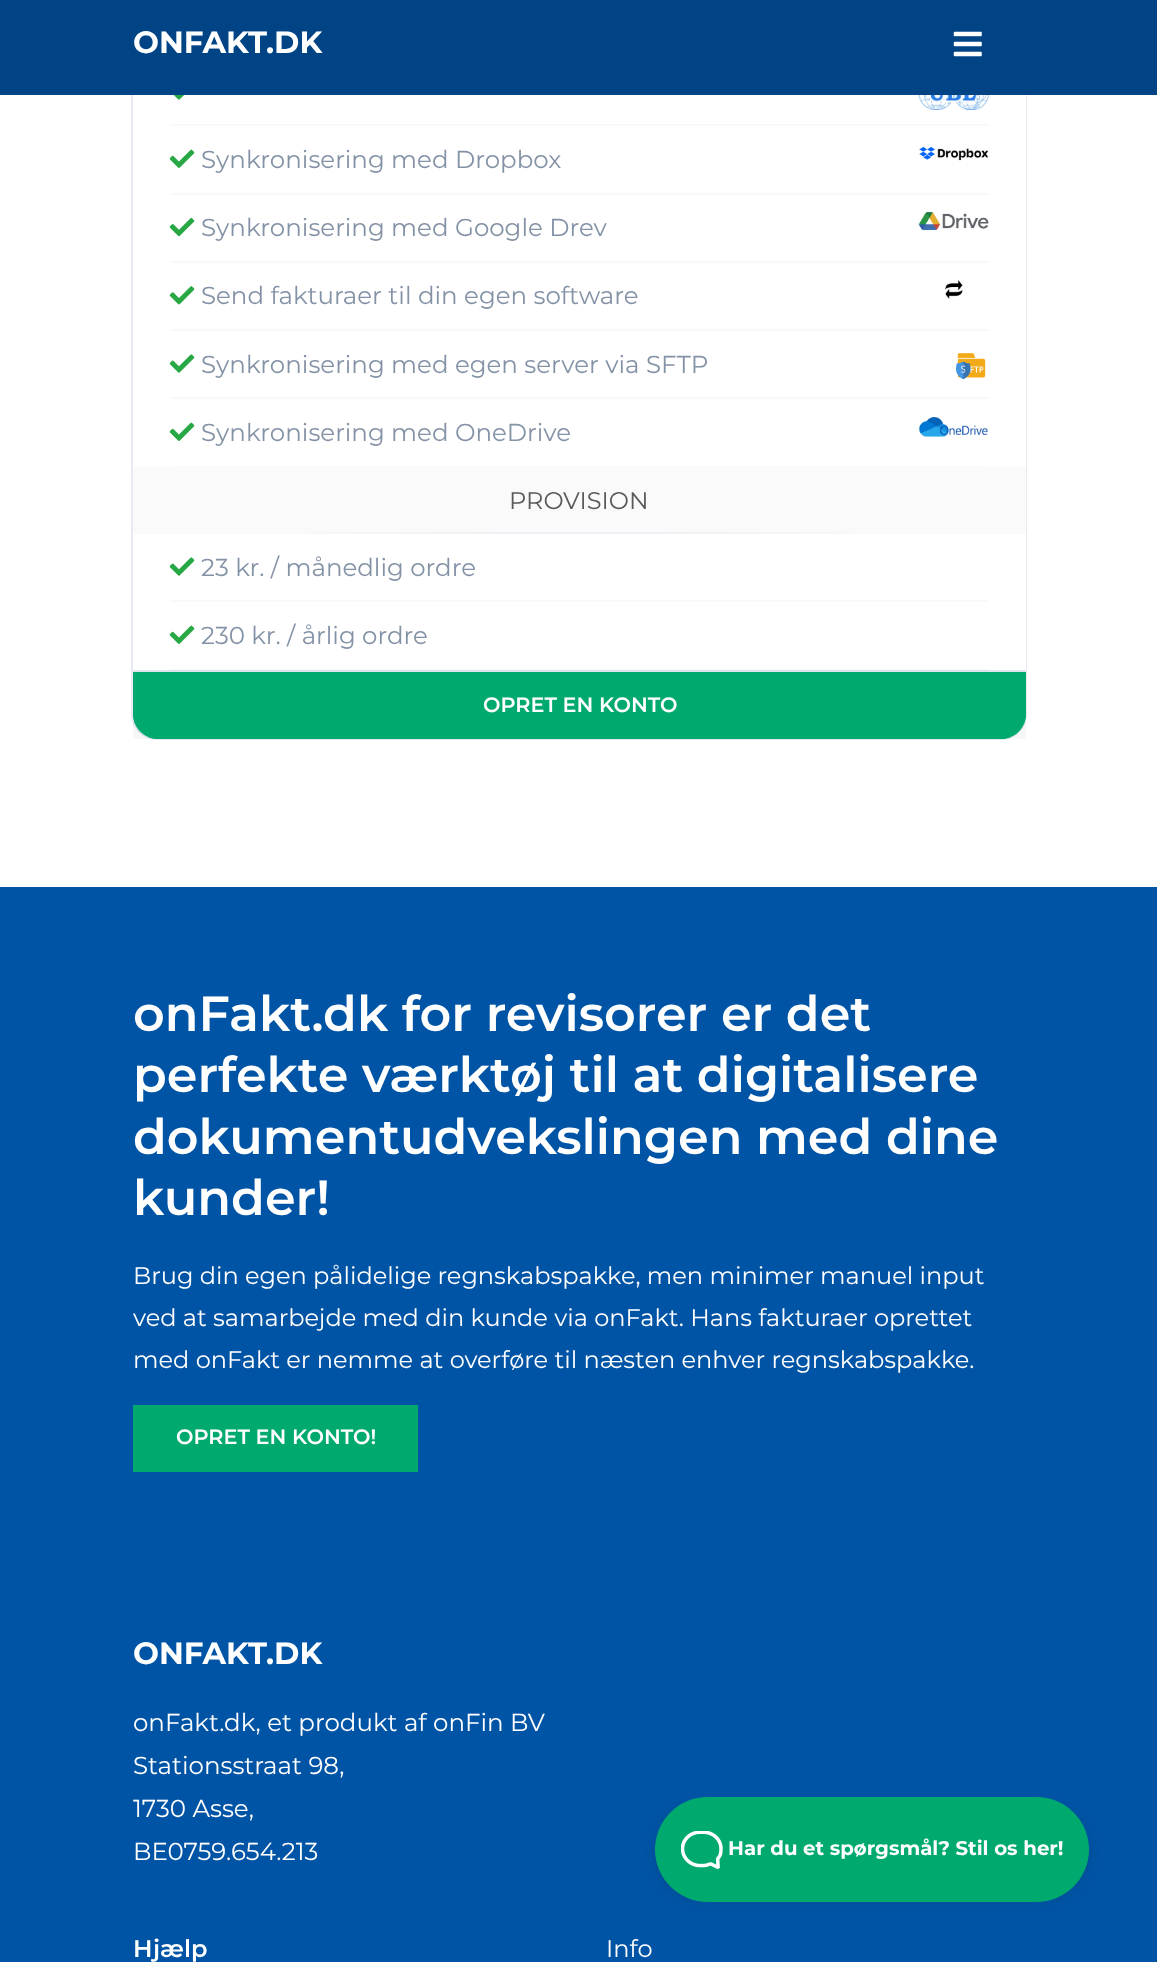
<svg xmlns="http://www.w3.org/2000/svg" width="1157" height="1962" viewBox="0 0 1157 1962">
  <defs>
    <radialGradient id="g1" gradientUnits="userSpaceOnUse" cx="0" cy="0" r="1" gradientTransform="matrix(505 0 0 1.2 579 533)"><stop offset="0" stop-color="rgb(222,228,239)"/><stop offset="0.75" stop-color="rgb(250,250,250)"/></radialGradient>
  </defs>
  <rect width="100%" height="100%" fill="rgb(255,255,255)"/>
  <rect x="132" y="-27" width="894" height="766" rx="25" fill="none" stroke="rgb(231,234,243)" stroke-width="2"/>
  <rect x="133" y="-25" width="893" height="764" rx="25" fill="rgb(255,255,255)"/>
  <rect x="0" y="0" width="1157" height="95" fill="rgb(0,68,134)"/>
  <text x="133" y="53" font-family="Montserrat" font-size="30.75" font-weight="bold" fill="rgb(255,255,255)">ONFAKT.DK</text>
  <image x="953" y="31" width="29" height="26" href="pic1.png"/>
  <rect x="170" y="124" width="819" height="2" fill="rgb(248,249,250)"/>
  <image x="173" y="95" width="11" height="5" href="pic2.png"/>
  <image x="918" y="95" width="71" height="15" href="pic3.png"/>
  <rect x="170" y="193" width="819" height="2" fill="rgb(248,249,250)"/>
  <image x="169" y="149" width="26" height="19" href="pic4.png"/>
  <text x="201" y="168" font-family="Montserrat" font-size="24.5" fill="rgb(132,146,166)">Synkronisering med Dropbox</text>
  <image x="919" y="146" width="70" height="15" href="pic5.png"/>
  <rect x="170" y="261" width="819" height="2" fill="rgb(248,249,250)"/>
  <image x="169" y="217" width="26" height="20" href="pic6.png"/>
  <text x="201" y="236" font-family="Montserrat" font-size="24.5" fill="rgb(132,146,166)">Synkronisering med Google Drev</text>
  <image x="918" y="211" width="71" height="20" href="pic7.png"/>
  <rect x="170" y="329" width="819" height="2" fill="rgb(248,249,250)"/>
  <image x="169" y="286" width="26" height="19" href="pic8.png"/>
  <text x="201" y="304" font-family="Montserrat" font-size="24.5" fill="rgb(132,146,166)">Send fakturaer til din egen software</text>
  <image x="945" y="280" width="18" height="19" href="pic9.png"/>
  <rect x="170" y="397" width="819" height="2" fill="rgb(248,249,250)"/>
  <image x="169" y="354" width="26" height="19" href="pic10.png"/>
  <text x="201" y="373" font-family="Montserrat" font-size="24.5" fill="rgb(132,146,166)">Synkronisering med egen server via SFTP</text>
  <image x="956" y="353" width="30" height="27" href="pic11.png"/>
  <rect x="170" y="466" width="819" height="1" fill="rgb(248,249,250)"/>
  <image x="169" y="422" width="26" height="19" href="pic4.png"/>
  <text x="201" y="441" font-family="Montserrat" font-size="24.5" fill="rgb(132,146,166)">Synkronisering med OneDrive</text>
  <image x="918" y="417" width="71" height="21" href="pic12.png"/>
  <rect x="133" y="467" width="893" height="67" fill="rgb(250,250,250)"/>
  <text x="509" y="509" font-family="Montserrat" font-size="24.05" fill="rgb(91,88,88)">PROVISION</text>
  <rect x="306" y="532" width="546" height="2" fill="url(#g1)"/>
  <rect x="170" y="600" width="819" height="2" fill="rgb(248,249,250)"/>
  <image x="169" y="557" width="26" height="19" href="pic10.png"/>
  <text x="201" y="576" font-family="Montserrat" font-size="24.5" fill="rgb(132,146,166)">23 kr. / månedlig ordre</text>
  <rect x="170" y="669" width="819" height="2" fill="rgb(248,249,250)"/>
  <image x="169" y="625" width="26" height="19" href="pic4.png"/>
  <text x="201" y="644" font-family="Montserrat" font-size="24.5" fill="rgb(132,146,166)">230 kr. / årlig ordre</text>
  <rect x="133" y="670" width="893" height="69" fill="rgba(0,0,0,0.03)"/>
  <rect x="133" y="670" width="893" height="2" fill="rgba(93,118,174,0.15)"/>
  <path d="M133 672H1026V714C1026 728 1015 739 1001 739H158C144 739 133 728 133 714Z" fill="rgb(0,170,110)"/>
  <path d="M135 674H1024V724C1025 721 1026 717 1026 714V672H133V714C133 717 134 721 135 724ZM1001 739C1004 739 1008 738 1011 737H148C151 738 155 739 158 739Z" fill="rgb(0,170,110)" fill-rule="evenodd"/>
  <text x="483" y="712" font-family="Montserrat" font-size="20.75" font-weight="600" fill="rgb(255,255,255)">OPRET EN KONTO</text>
  <rect x="0" y="887" width="1157" height="1075" fill="rgb(0,84,165)"/>
  <g font-family="Montserrat" font-size="49.25" font-weight="600" fill="rgb(255,255,255)">
    <text>
      <tspan x="133" y="1031">onFakt.dk for revisorer er det</tspan>
      <tspan x="133" y="1092">perfekte værktøj til at digitalisere</tspan>
      <tspan x="133" y="1154">dokumentudvekslingen med dine</tspan>
      <tspan x="133" y="1215">kunder!</tspan>
    </text>
  </g>
  <g font-family="Montserrat" font-size="24.05" fill="rgb(255,255,255)">
    <text>
      <tspan x="133" y="1284">Brug din egen pålidelige regnskabspakke, men minimer manuel input</tspan>
      <tspan x="133" y="1326">ved at samarbejde med din kunde via onFakt. Hans fakturaer oprettet</tspan>
      <tspan x="133" y="1368">med onFakt er nemme at overføre til næsten enhver regnskabspakke.</tspan>
    </text>
  </g>
  <rect x="133" y="1405" width="285" height="67" fill="rgb(0,170,110)"/>
  <text x="176" y="1444" font-family="Montserrat" font-size="20.75" font-weight="600" fill="rgb(255,255,255)">OPRET EN KONTO!</text>
  <text x="133" y="1664" font-family="Montserrat" font-size="30.75" font-weight="bold" fill="rgb(255,255,255)">ONFAKT.DK</text>
  <g font-family="Montserrat" font-size="24.5" fill="rgb(255,255,255)">
    <text>
      <tspan x="133" y="1731">onFakt.dk, et produkt af onFin BV</tspan>
      <tspan x="133" y="1774">Stationsstraat 98,</tspan>
      <tspan x="133" y="1817">1730 Asse,</tspan>
      <tspan x="133" y="1860">BE0759.654.213</tspan>
    </text>
  </g>
  <text x="133" y="1957" font-family="Montserrat" font-size="24.05" font-weight="600" fill="rgb(255,255,255)">Hjælp</text>
  <text x="606" y="1957" font-family="Montserrat" font-size="24.05" fill="rgb(255,255,255)">Info</text>
  <rect x="655" y="1804" width="434" height="97" rx="48.5" fill="rgba(0,0,0,0.1)" filter="blur(6px)"/>
  <rect x="655" y="1797" width="434" height="105" rx="52.5" fill="rgb(0,170,110)"/>
  <image x="681" y="1831" width="42" height="38" href="pic13.png"/>
  <text x="728" y="1855" font-family="Montserrat" font-size="19.75" font-weight="bold" fill="rgb(255,255,255)">Har du et spørgsmål? Stil os her!</text>
</svg>
